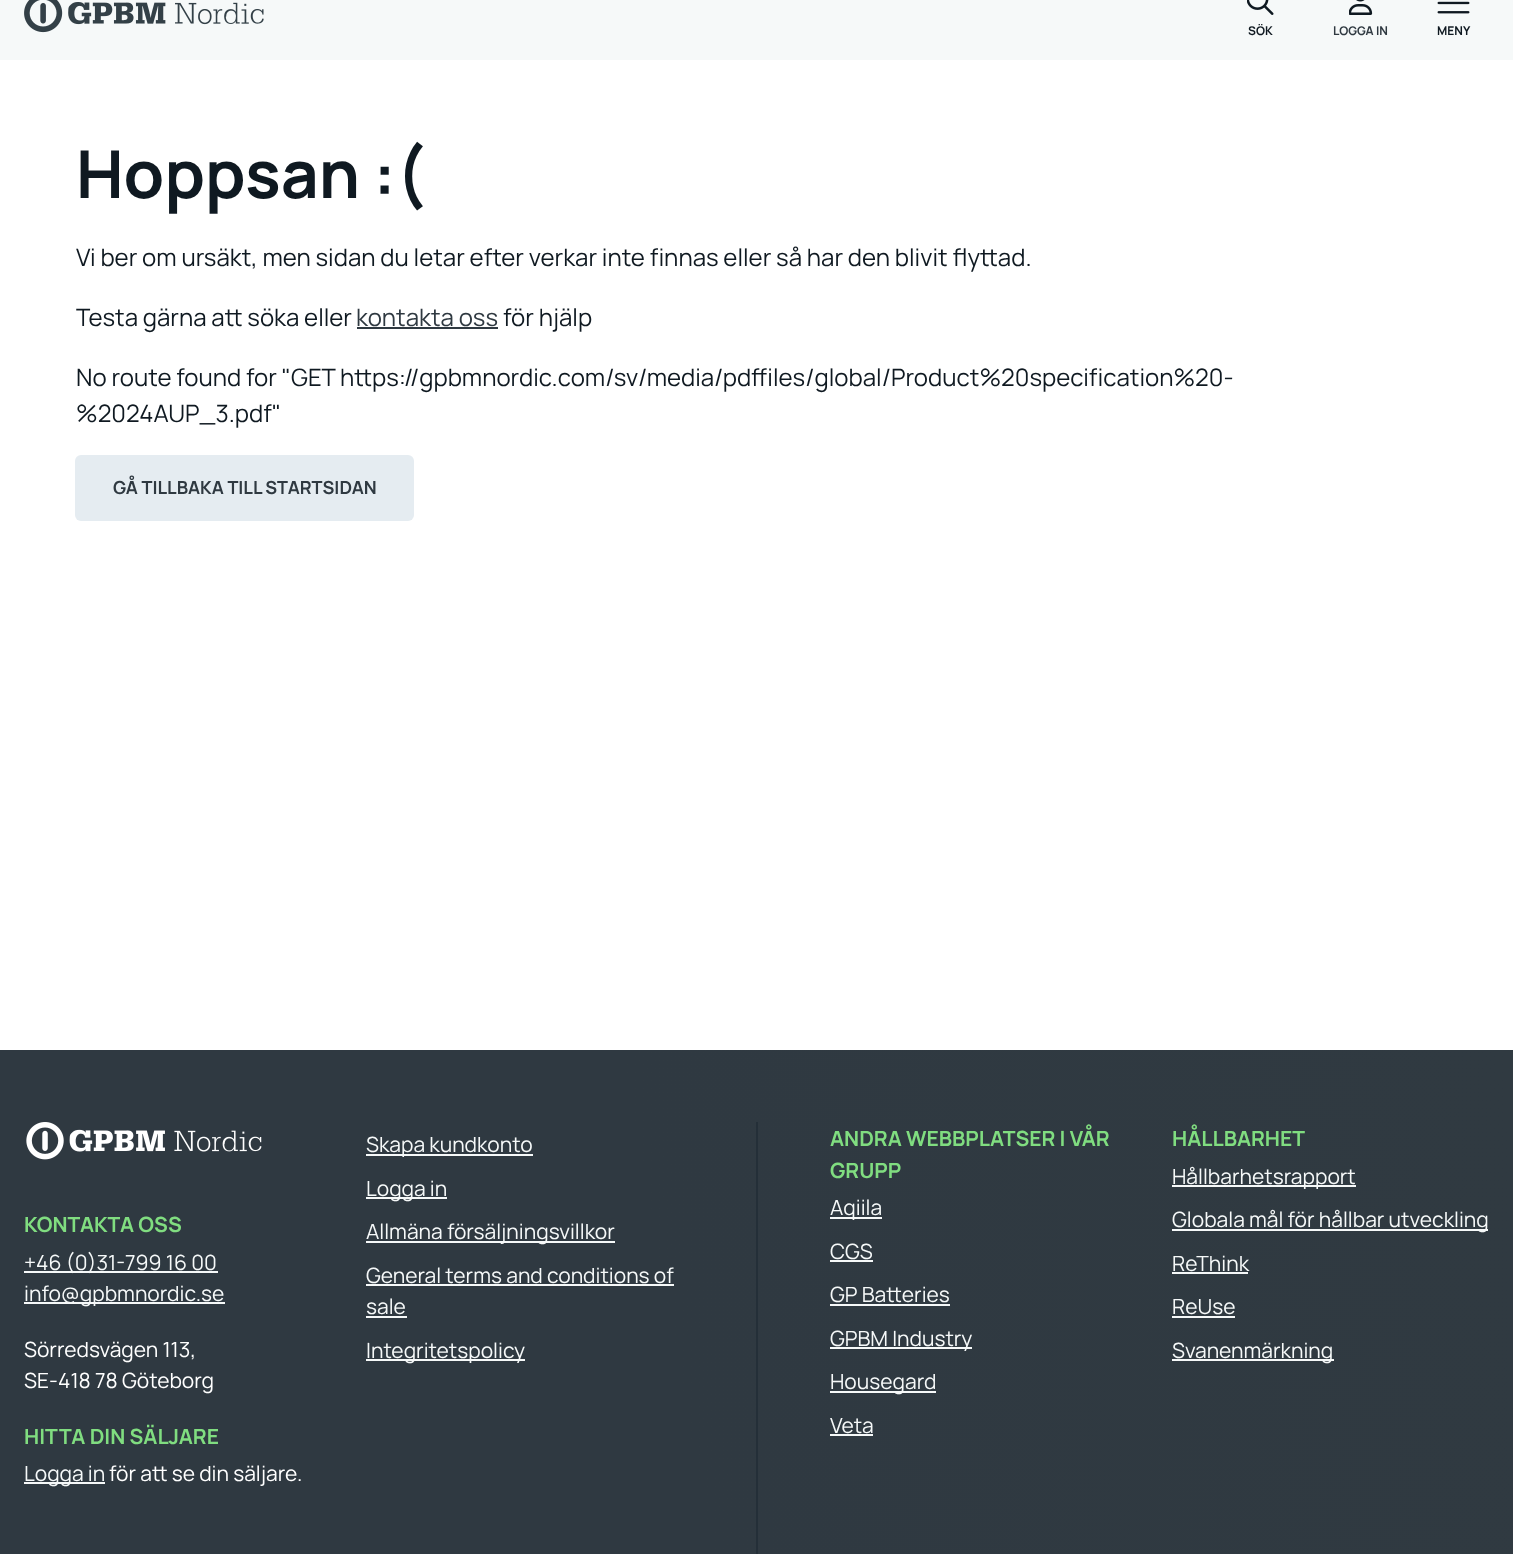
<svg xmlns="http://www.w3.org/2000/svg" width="1513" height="1554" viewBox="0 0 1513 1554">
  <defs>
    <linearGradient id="g1" gradientUnits="userSpaceOnUse" x1="-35" y1="1528" x2="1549" y2="1249"><stop offset="0.45" stop-color="rgb(47,57,65)"/><stop offset="1" stop-color="rgb(48,58,65)"/></linearGradient>
  </defs>
  <rect width="100%" height="100%" fill="rgb(255,255,255)"/>
  <rect x="0" y="0" width="1513" height="60" fill="rgb(246,249,249)"/>
  <image x="24" y="0" width="240" height="33" href="pic1.png"/>
  <image x="1247" y="0" width="27" height="15" href="pic2.png"/>
  <text x="1248" y="35" font-family="Manrope" font-size="12" font-weight="bold" fill="rgb(15,25,33)">SÖK</text>
  <image x="1349" y="0" width="24" height="15" href="pic3.png"/>
  <text x="1333" y="35" font-family="Manrope" font-size="12" font-weight="bold" fill="rgb(47,57,65)">LOGGA IN</text>
  <image x="1437" y="1" width="33" height="13" href="pic4.png"/>
  <text x="1437" y="35" font-family="Manrope" font-size="12" font-weight="bold" fill="rgb(15,25,33)">MENY</text>
  <text x="76" y="198" font-family="Manrope" font-size="66" font-weight="bold" fill="rgb(15,25,33)">Hoppsan :(</text>
  <g font-family="Manrope" font-size="24" fill="rgb(15,25,33)">
    <text x="76" y="266">Vi ber om ursäkt, men sidan du letar efter verkar inte finnas eller så har den blivit flyttad.</text>
    <text x="76" y="326">Testa gärna att söka eller</text>
  </g>
  <text x="356" y="326" font-family="Manrope" font-size="24" fill="rgb(47,57,65)">kontakta oss</text>
  <rect x="357" y="327" width="141" height="2" fill="rgb(47,57,65)"/>
  <g font-family="Manrope" font-size="24" fill="rgb(15,25,33)">
    <text x="503" y="326">för hjälp</text>
    <text>
      <tspan x="76" y="386">No route found for "GET https://gpbmnordic.com/sv/media/pdffiles/global/Product%20specification%20-</tspan>
      <tspan x="76" y="422">%2024AUP_3.pdf"</tspan>
    </text>
  </g>
  <rect x="75" y="455" width="339" height="66" rx="6" fill="rgb(229,236,241)"/>
  <text x="113" y="494" font-family="Manrope" font-size="18" font-weight="bold" fill="rgb(47,57,65)">GÅ TILLBAKA TILL STARTSIDAN</text>
  <rect x="0" y="1050" width="1513" height="504" fill="url(#g1)"/>
  <image x="26" y="1122" width="236" height="38" href="pic5.png"/>
  <text x="24" y="1232" font-family="Manrope" font-size="21" font-weight="bold" fill="rgb(128,221,128)">KONTAKTA OSS</text>
  <rect x="24" y="1271" width="194" height="2" fill="rgb(246,249,249)"/>
  <text x="24" y="1270" font-family="Manrope" font-size="21" fill="rgb(246,249,249)">+46 (0)31-799 16 00</text>
  <rect x="24" y="1302" width="201" height="2" fill="rgb(246,249,249)"/>
  <text x="24" y="1301" font-family="Manrope" font-size="21" fill="rgb(246,249,249)">info@gpbmnordic.se</text>
  <g font-family="Manrope" font-size="21" fill="rgb(255,255,255)">
    <text>
      <tspan x="24" y="1357">Sörredsvägen 113,</tspan>
      <tspan x="24" y="1388">SE-418 78 Göteborg</tspan>
    </text>
  </g>
  <text x="24" y="1444" font-family="Manrope" font-size="21" font-weight="bold" fill="rgb(128,221,128)">HITTA DIN SÄLJARE</text>
  <rect x="24" y="1482" width="81" height="2" fill="rgb(246,249,249)"/>
  <text x="24" y="1481" font-family="Manrope" font-size="21" fill="rgb(246,249,249)">Logga in</text>
  <text x="109" y="1481" font-family="Manrope" font-size="21" fill="rgb(255,255,255)">för att se din säljare.</text>
  <rect x="366" y="1154" width="167" height="2" fill="rgb(246,249,249)"/>
  <text x="366" y="1152" font-family="Manrope" font-size="21" fill="rgb(246,249,249)">Skapa kundkonto</text>
  <rect x="366" y="1197" width="81" height="2" fill="rgb(246,249,249)"/>
  <text x="366" y="1196" font-family="Manrope" font-size="21" fill="rgb(246,249,249)">Logga in</text>
  <rect x="366" y="1241" width="249" height="2" fill="rgb(246,249,249)"/>
  <g font-family="Manrope" font-size="21" fill="rgb(246,249,249)">
    <text x="366" y="1239">Allmäna försäljningsvillkor</text>
    <text x="366" y="1283">General terms and conditions of</text>
  </g>
  <rect x="366" y="1284" width="308" height="2" fill="rgb(246,249,249)"/>
  <text x="366" y="1314" font-family="Manrope" font-size="21" fill="rgb(246,249,249)">sale</text>
  <rect x="366" y="1316" width="41" height="2" fill="rgb(246,249,249)"/>
  <rect x="366" y="1359" width="159" height="2" fill="rgb(246,249,249)"/>
  <text x="366" y="1358" font-family="Manrope" font-size="21" fill="rgb(246,249,249)">Integritetspolicy</text>
  <rect x="756" y="1122" width="2" height="432" fill="rgb(36,47,56)"/>
  <g font-family="Manrope" font-size="21" font-weight="bold" fill="rgb(128,221,128)">
    <text>
      <tspan x="830" y="1146">ANDRA WEBBPLATSER I VÅR</tspan>
      <tspan x="830" y="1178">GRUPP</tspan>
    </text>
  </g>
  <rect x="830" y="1217" width="52" height="2" fill="rgb(246,249,249)"/>
  <g font-family="Manrope" font-size="21" fill="rgb(246,249,249)">
    <text x="830" y="1215">Aqiila</text>
    <text x="830" y="1259">CGS</text>
  </g>
  <rect x="830" y="1260" width="43" height="2" fill="rgb(246,249,249)"/>
  <text x="830" y="1302" font-family="Manrope" font-size="21" fill="rgb(246,249,249)">GP Batteries</text>
  <rect x="830" y="1304" width="120" height="2" fill="rgb(246,249,249)"/>
  <rect x="830" y="1347" width="142" height="2" fill="rgb(246,249,249)"/>
  <text x="830" y="1346" font-family="Manrope" font-size="21" fill="rgb(246,249,249)">GPBM Industry</text>
  <rect x="830" y="1391" width="106" height="2" fill="rgb(246,249,249)"/>
  <g font-family="Manrope" font-size="21" fill="rgb(246,249,249)">
    <text x="830" y="1389">Housegard</text>
    <text x="830" y="1433">Veta</text>
  </g>
  <rect x="830" y="1434" width="43" height="2" fill="rgb(246,249,249)"/>
  <text x="1172" y="1146" font-family="Manrope" font-size="21" font-weight="bold" fill="rgb(128,221,128)">HÅLLBARHET</text>
  <rect x="1172" y="1185" width="184" height="2" fill="rgb(246,249,249)"/>
  <text x="1172" y="1184" font-family="Manrope" font-size="21" fill="rgb(246,249,249)">Hållbarhetsrapport</text>
  <rect x="1172" y="1229" width="316" height="2" fill="rgb(246,249,249)"/>
  <g font-family="Manrope" font-size="21" fill="rgb(246,249,249)">
    <text x="1172" y="1227">Globala mål för hållbar utveckling</text>
    <text x="1172" y="1271">ReThink</text>
  </g>
  <rect x="1172" y="1272" width="76" height="2" fill="rgb(246,249,249)"/>
  <text x="1172" y="1314" font-family="Manrope" font-size="21" fill="rgb(246,249,249)">ReUse</text>
  <rect x="1172" y="1316" width="63" height="2" fill="rgb(246,249,249)"/>
  <rect x="1172" y="1359" width="162" height="2" fill="rgb(246,249,249)"/>
  <text x="1172" y="1358" font-family="Manrope" font-size="21" fill="rgb(246,249,249)">Svanenmärkning</text>
</svg>
